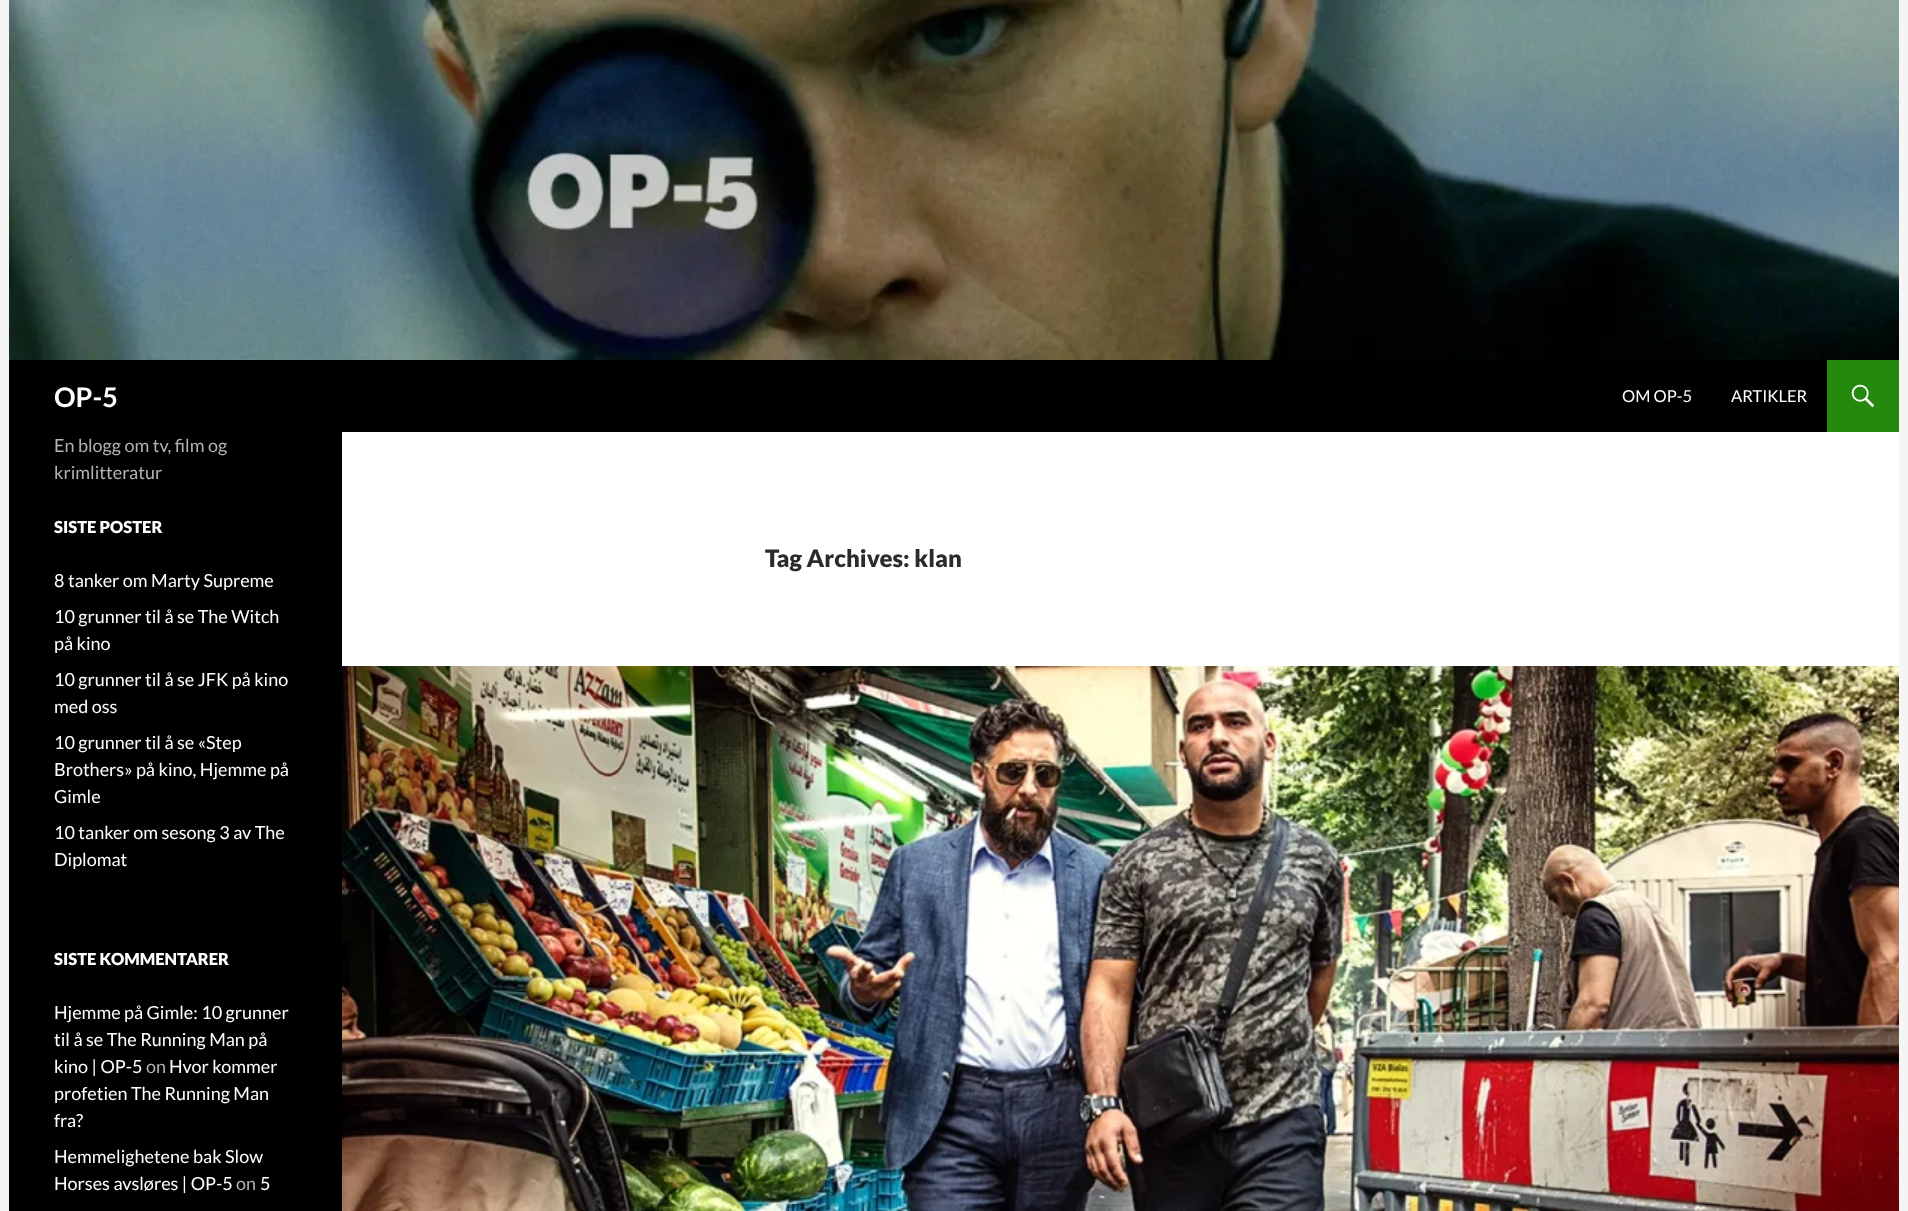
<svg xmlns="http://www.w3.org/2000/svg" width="1908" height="1211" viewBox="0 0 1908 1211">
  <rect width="100%" height="100%" fill="rgb(245,245,245)"/>
  <rect x="342" y="432" width="1557" height="234" fill="rgb(255,255,255)"/>
  <image x="9" y="0" width="1890" height="360" href="pic1.png"/>
  <rect x="9" y="360" width="1818" height="72" fill="rgb(0,0,0)"/>
  <text x="54" y="407" font-family="Lato" font-size="27" font-weight="bold" fill="rgb(255,255,255)">OP-5</text>
  <g font-family="Lato" font-size="16.5" fill="rgb(255,255,255)">
    <text x="1622" y="402">OM OP-5</text>
    <text x="1731" y="402">ARTIKLER</text>
  </g>
  <rect x="1827" y="360" width="72" height="72" fill="rgb(36,137,13)"/>
  <image x="1851" y="384" width="24" height="24" href="pic2.png"/>
  <rect x="9" y="432" width="333" height="779" fill="rgb(0,0,0)"/>
  <g font-family="Lato" font-size="18" fill="rgb(179,179,179)">
    <text>
      <tspan x="54" y="452">En blogg om tv, film og</tspan>
      <tspan x="54" y="479">krimlitteratur</tspan>
    </text>
  </g>
  <text x="54" y="533" font-family="Lato" font-size="16.5" font-weight="900" fill="rgb(255,255,255)">SISTE POSTER</text>
  <g font-family="Lato" font-size="18" fill="rgb(255,255,255)">
    <text x="54" y="587">8 tanker om Marty Supreme</text>
    <text>
      <tspan x="54" y="623">10 grunner til å se The Witch</tspan>
      <tspan x="54" y="650">på kino</tspan>
    </text>
    <text>
      <tspan x="54" y="686">10 grunner til å se JFK på kino</tspan>
      <tspan x="54" y="713">med oss</tspan>
    </text>
    <text>
      <tspan x="54" y="749">10 grunner til å se «Step</tspan>
      <tspan x="54" y="776">Brothers» på kino, Hjemme på</tspan>
      <tspan x="54" y="803">Gimle</tspan>
    </text>
    <text>
      <tspan x="54" y="839">10 tanker om sesong 3 av The</tspan>
      <tspan x="54" y="866">Diplomat</tspan>
    </text>
  </g>
  <text x="54" y="965" font-family="Lato" font-size="16.5" font-weight="900" fill="rgb(255,255,255)">SISTE KOMMENTARER</text>
  <g font-family="Lato" font-size="18" fill="rgb(255,255,255)">
    <text>
      <tspan x="54" y="1019">Hjemme på Gimle: 10 grunner</tspan>
      <tspan x="54" y="1046">til å se The Running Man på</tspan>
      <tspan x="54" y="1073">kino | OP-5</tspan>
    </text>
  </g>
  <text x="146" y="1073" font-family="Lato" font-size="18" fill="rgb(179,179,179)">on</text>
  <g font-family="Lato" font-size="18" fill="rgb(255,255,255)">
    <text x="169" y="1073">Hvor kommer</text>
    <text>
      <tspan x="54" y="1100">profetien The Running Man</tspan>
      <tspan x="54" y="1127">fra?</tspan>
    </text>
    <text>
      <tspan x="54" y="1163">Hemmelighetene bak Slow</tspan>
      <tspan x="54" y="1190">Horses avsløres | OP-5</tspan>
    </text>
  </g>
  <text x="236" y="1190" font-family="Lato" font-size="18" fill="rgb(179,179,179)">on</text>
  <text x="260" y="1190" font-family="Lato" font-size="18" fill="rgb(255,255,255)">5</text>
  <text x="765" y="567" font-family="Lato" font-size="24" font-weight="900" fill="rgb(43,43,43)">Tag Archives: klan</text>
  <image x="342" y="666" width="1557" height="545" href="pic3.png"/>
</svg>
